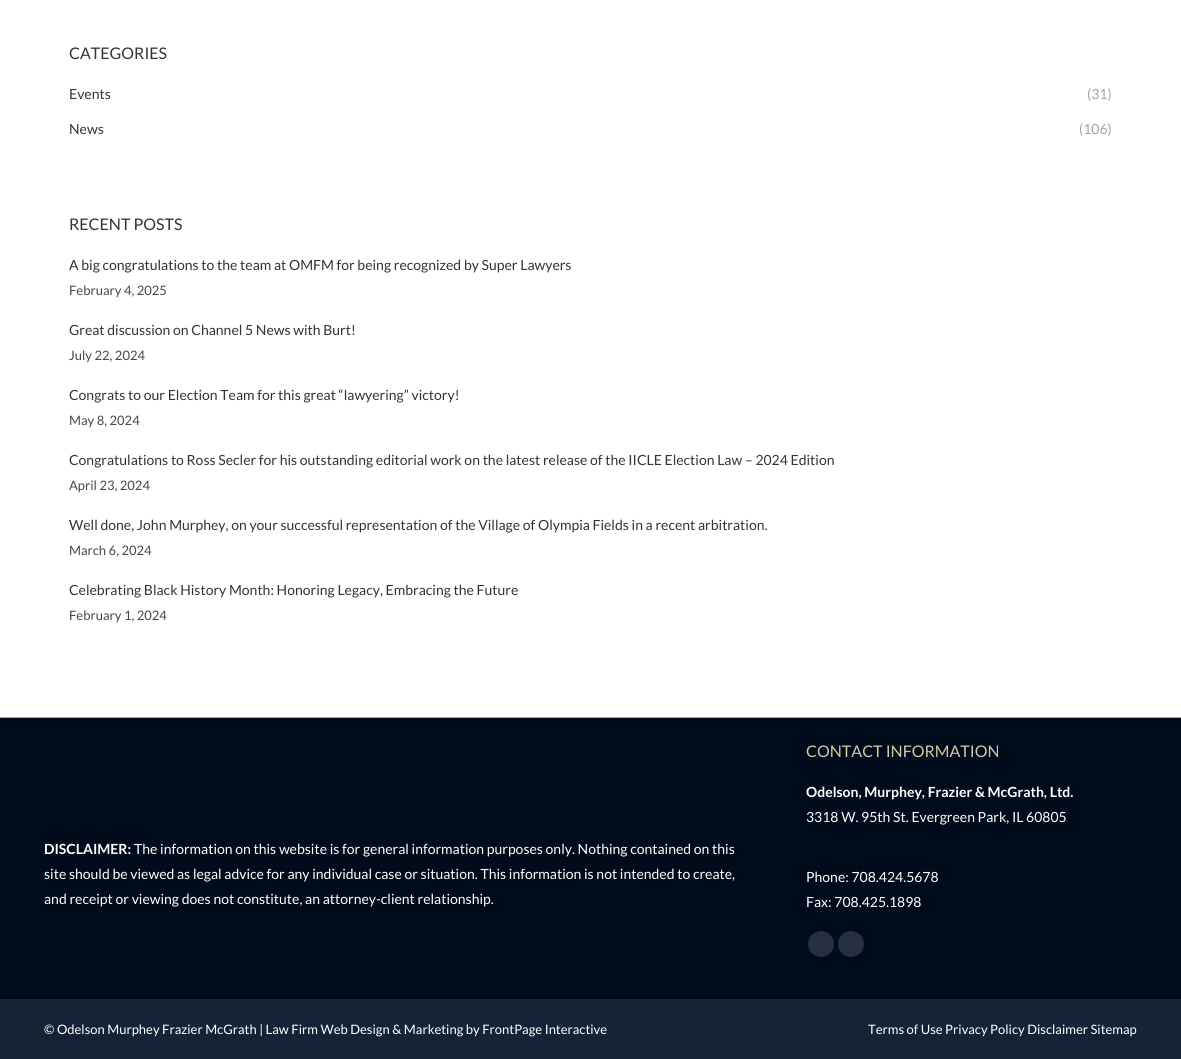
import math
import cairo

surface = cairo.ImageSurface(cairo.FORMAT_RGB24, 1181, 1059)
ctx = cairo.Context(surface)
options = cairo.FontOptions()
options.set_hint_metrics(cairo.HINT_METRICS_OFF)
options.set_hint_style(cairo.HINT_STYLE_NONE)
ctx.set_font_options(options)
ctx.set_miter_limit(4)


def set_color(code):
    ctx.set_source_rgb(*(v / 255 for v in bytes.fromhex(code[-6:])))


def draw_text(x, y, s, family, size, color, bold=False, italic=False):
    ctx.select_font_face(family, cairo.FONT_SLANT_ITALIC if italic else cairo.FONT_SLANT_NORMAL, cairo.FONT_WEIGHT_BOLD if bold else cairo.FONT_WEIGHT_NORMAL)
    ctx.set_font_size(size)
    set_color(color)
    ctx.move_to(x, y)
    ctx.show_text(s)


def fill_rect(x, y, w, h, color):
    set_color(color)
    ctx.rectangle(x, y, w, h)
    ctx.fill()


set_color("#ffffff")
ctx.paint()
draw_text(69, 59, "CATEGORIES", "Lato", 16, "#333333")
draw_text(69, 99, "Events", "Lato", 14, "#333333")
draw_text(1087, 99, "(31)", "Lato", 14, "#a3a3a3")
draw_text(69, 134, "News", "Lato", 14, "#333333")
draw_text(1079, 134, "(106)", "Lato", 14, "#a3a3a3")
draw_text(69, 230, "RECENT POSTS", "Lato", 16, "#333333")
draw_text(69, 270, "A big congratulations to the team at OMFM for being recognized by Super Lawyers", "Lato", 14, "#333333")
draw_text(69, 295, "February 4, 2025", "Lato", 13, "#474747")
draw_text(69, 335, "Great discussion on Channel 5 News with Burt!", "Lato", 14, "#333333")
draw_text(69, 360, "July 22, 2024", "Lato", 13, "#474747")
draw_text(69, 400, "Congrats to our Election Team for this great “lawyering” victory!", "Lato", 14, "#333333")
draw_text(69, 425, "May 8, 2024", "Lato", 13, "#474747")
draw_text(69, 465, "Congratulations to Ross Secler for his outstanding editorial work on the latest release of the IICLE Election Law – 2024 Edition", "Lato", 14, "#333333")
draw_text(69, 490, "April 23, 2024", "Lato", 13, "#474747")
draw_text(69, 530, "Well done, John Murphey, on your successful representation of the Village of Olympia Fields in a recent arbitration.", "Lato", 14, "#333333")
draw_text(69, 555, "March 6, 2024", "Lato", 13, "#474747")
draw_text(69, 595, "Celebrating Black History Month: Honoring Legacy, Embracing the Future", "Lato", 14, "#333333")
draw_text(69, 620, "February 1, 2024", "Lato", 13, "#474747")
fill_rect(0, 718, 1181, 281, "#000c1c")
fill_rect(0, 717, 1181, 1, "#b2ae9b")
draw_text(44, 854, "DISCLAIMER:", "Lato", 14, "#ffffff", bold=True)
draw_text(134, 854, "The information on this website is for general information purposes only. Nothing contained on this", "Lato", 14, "#ffffff")
draw_text(44, 879, "site should be viewed as legal advice for any individual case or situation. This information is not intended to create,", "Lato", 14, "#ffffff")
draw_text(44, 904, "and receipt or viewing does not constitute, an attorney-client relationship.", "Lato", 14, "#ffffff")
draw_text(806, 757, "CONTACT INFORMATION", "Lato", 16, "#d1cca5")
draw_text(806, 797, "Odelson, Murphey, Frazier & McGrath, Ltd.", "Lato", 14, "#ffffff", bold=True)
draw_text(806, 822, "3318 W. 95th St. Evergreen Park, IL 60805", "Lato", 14, "#ffffff")
draw_text(806, 882, "Phone: 708.424.5678", "Lato", 14, "#ffffff")
draw_text(806, 907, "Fax: 708.425.1898", "Lato", 14, "#ffffff")
set_color("#26303e")
ctx.new_path()
ctx.arc(821, 944, 13, 0, 2 * math.pi)
ctx.fill()
ctx.arc(851, 944, 13, 0, 2 * math.pi)
ctx.fill()
fill_rect(0, 999, 1181, 60, "#162336")
draw_text(44, 1034, "© Odelson Murphey Frazier McGrath | Law Firm Web Design & Marketing by FrontPage Interactive", "Lato", 13, "#ffffff")
draw_text(868, 1034, "Terms of Use Privacy Policy Disclaimer Sitemap", "Lato", 13, "#ffffff")
surface.write_to_png("output.png")
